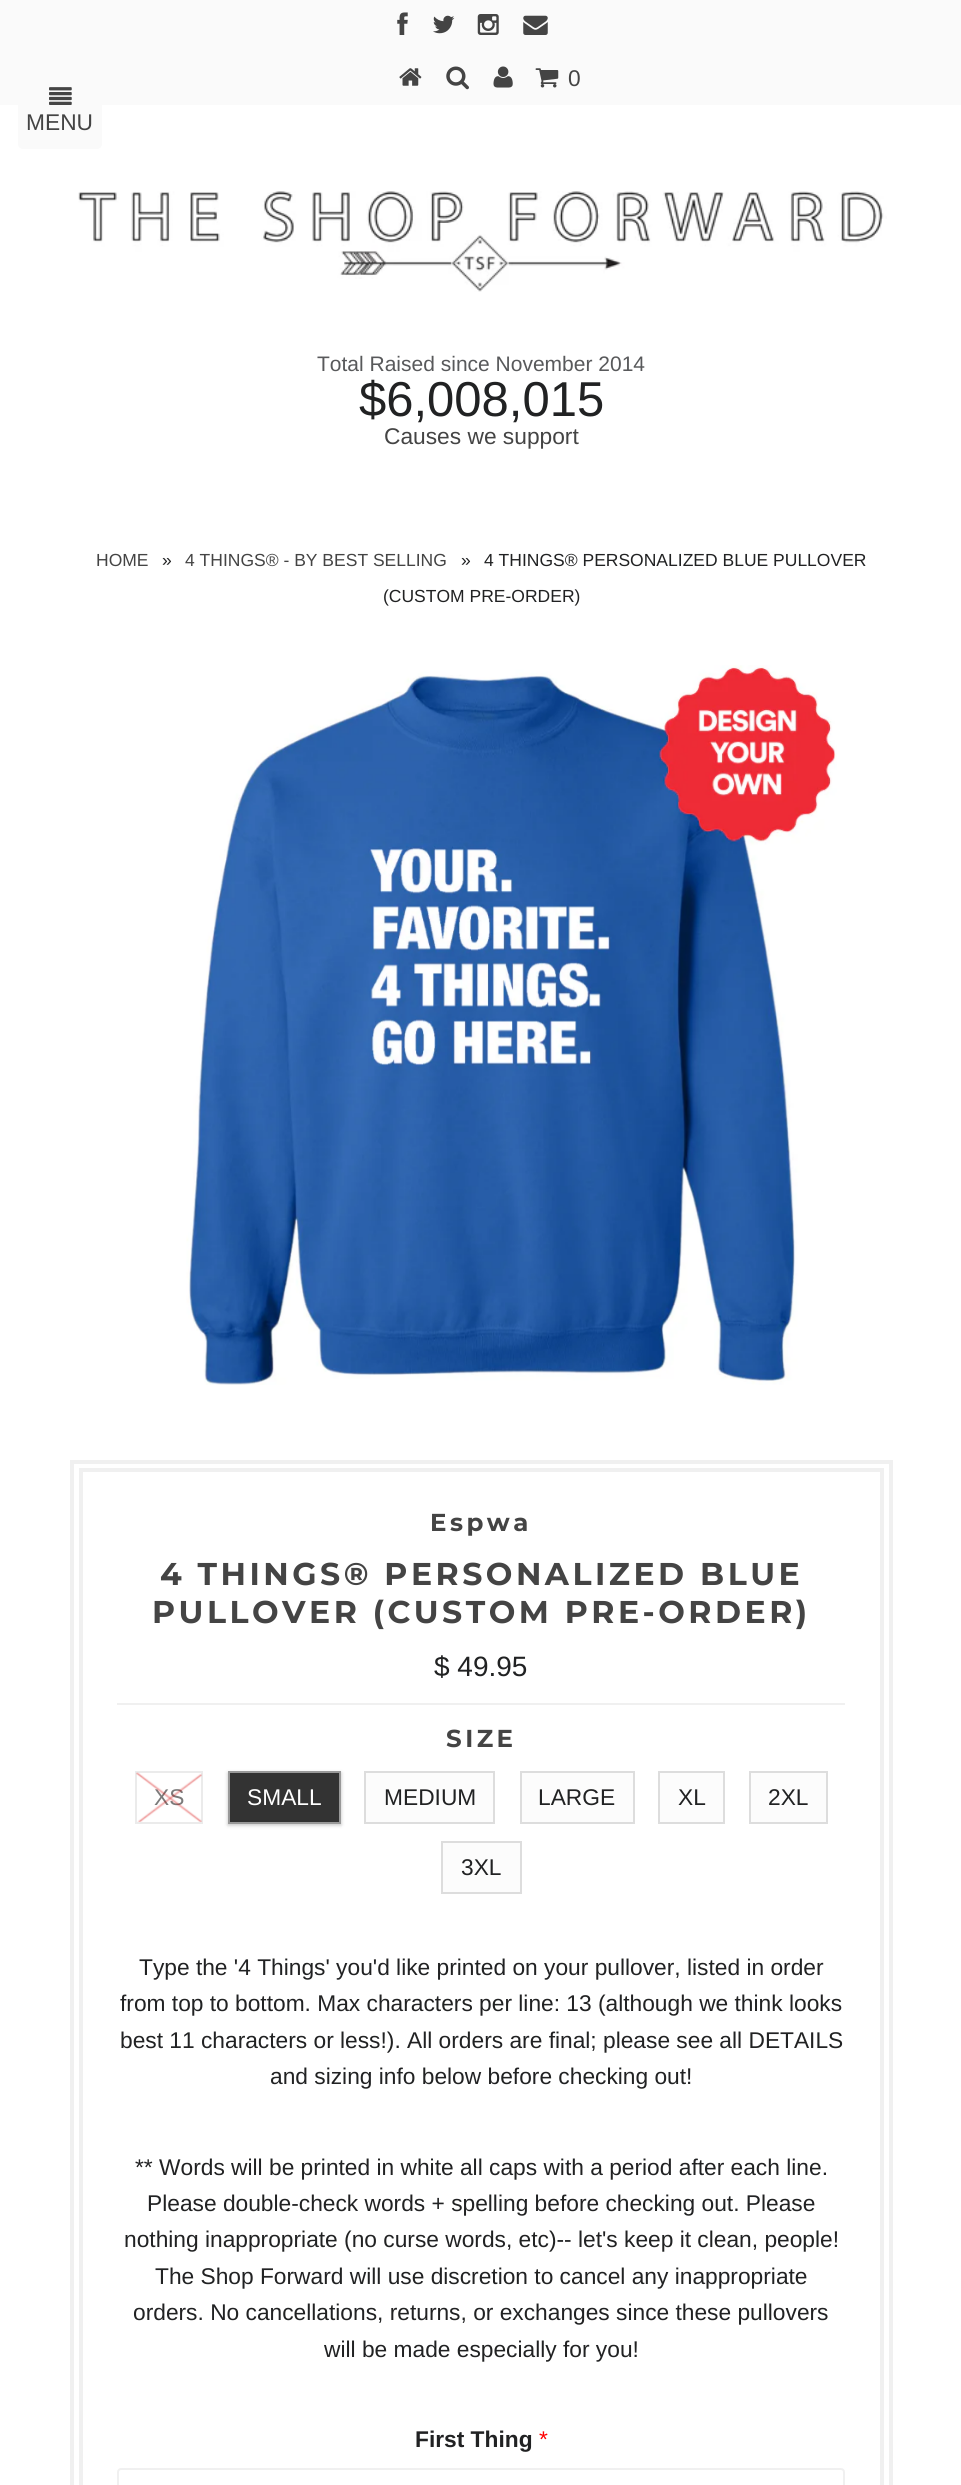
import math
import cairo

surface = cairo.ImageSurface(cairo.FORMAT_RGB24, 961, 2485)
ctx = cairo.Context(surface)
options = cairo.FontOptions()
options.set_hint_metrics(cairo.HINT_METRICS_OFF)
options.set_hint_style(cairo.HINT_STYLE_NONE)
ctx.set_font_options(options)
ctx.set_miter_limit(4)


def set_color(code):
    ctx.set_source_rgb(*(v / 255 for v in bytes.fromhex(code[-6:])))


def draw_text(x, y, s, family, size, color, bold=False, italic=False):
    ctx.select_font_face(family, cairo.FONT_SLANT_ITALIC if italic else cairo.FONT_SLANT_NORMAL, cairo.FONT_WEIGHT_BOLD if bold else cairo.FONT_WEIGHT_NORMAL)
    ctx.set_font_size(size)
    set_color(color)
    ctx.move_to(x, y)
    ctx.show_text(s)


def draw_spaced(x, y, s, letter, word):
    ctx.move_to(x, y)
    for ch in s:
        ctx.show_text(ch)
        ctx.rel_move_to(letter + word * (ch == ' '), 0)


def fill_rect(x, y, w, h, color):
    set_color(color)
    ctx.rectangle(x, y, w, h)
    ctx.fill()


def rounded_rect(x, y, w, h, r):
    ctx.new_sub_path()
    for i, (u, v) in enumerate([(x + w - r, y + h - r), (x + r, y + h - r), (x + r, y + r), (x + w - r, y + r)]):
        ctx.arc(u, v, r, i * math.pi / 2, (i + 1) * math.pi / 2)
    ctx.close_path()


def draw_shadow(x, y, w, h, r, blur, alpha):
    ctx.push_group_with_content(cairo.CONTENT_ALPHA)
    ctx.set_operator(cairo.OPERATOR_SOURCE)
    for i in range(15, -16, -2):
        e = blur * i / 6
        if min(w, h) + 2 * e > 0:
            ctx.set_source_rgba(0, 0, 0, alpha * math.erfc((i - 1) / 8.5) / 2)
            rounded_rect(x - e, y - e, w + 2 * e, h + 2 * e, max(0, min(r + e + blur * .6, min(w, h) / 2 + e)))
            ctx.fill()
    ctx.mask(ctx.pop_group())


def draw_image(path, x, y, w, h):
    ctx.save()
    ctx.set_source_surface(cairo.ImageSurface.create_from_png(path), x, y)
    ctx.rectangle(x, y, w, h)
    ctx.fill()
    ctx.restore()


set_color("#ffffff")
ctx.paint()
fill_rect(0, 0, 961, 105, "#fafafa")
rounded_rect(18, 70, 84, 79, 5)
ctx.fill()
draw_image("assets/img1.png", 49, 87, 23, 18)
draw_text(26, 130, "MENU", "Liberation Sans", 22.75, "#444444")
draw_image("assets/img2.png", 397, 12, 11, 23)
draw_image("assets/img3.png", 433, 15, 22, 19)
draw_image("assets/img4.png", 477, 14, 22, 21)
draw_image("assets/img5.png", 523, 15, 25, 20)
draw_image("assets/img6.png", 399, 68, 23, 18)
draw_image("assets/img7.png", 446, 66, 23, 24)
draw_image("assets/img8.png", 493, 66, 20, 22)
draw_image("assets/img9.png", 535, 68, 24, 20)
draw_text(568, 86, "0", "Liberation Sans", 22.75, "#444444")
draw_image("assets/img10.png", 78, 191, 809, 101)
draw_text(317, 371, "Total Raised since November 2014", "Liberation Sans", 21, "#58595b")
draw_text(359, 416, "$6,008,015", "Liberation Sans", 49, "#212223")
draw_text(384, 444, "Causes we support", "Liberation Sans", 22.75, "#444444")
draw_text(96, 566, "HOME", "Liberation Sans", 17.5, "#444444")
draw_text(162, 566, "»", "Liberation Sans", 17.5, "#212223")
draw_text(185, 566, "4 THINGS® - BY BEST SELLING", "Liberation Sans", 17.5, "#444444")
draw_text(461, 566, "»", "Liberation Sans", 17.5, "#212223")
draw_text(484, 566, "4 THINGS® PERSONALIZED BLUE PULLOVER", "Liberation Sans", 17.5, "#212223")
draw_text(383, 602, "(CUSTOM PRE-ORDER)", "Liberation Sans", 17.5, "#212223")
draw_image("assets/img11.png", 186, 665, 651, 720)
ctx.rectangle(72, 1462, 819, 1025)
set_color("#f0f0f0")
ctx.set_line_width(4)
ctx.stroke()
ctx.rectangle(81, 1470, 801, 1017)
ctx.stroke()
ctx.select_font_face("Montserrat", cairo.FONT_SLANT_NORMAL, cairo.FONT_WEIGHT_BOLD)
ctx.set_font_size(24.5)
set_color("#444444")
draw_spaced(430, 1531, "Espwa", 3.5, 0)
ctx.set_font_size(31.5)
draw_spaced(160, 1585, "4 THINGS® PERSONALIZED BLUE", 3.5, 0)
draw_spaced(152, 1623, "PULLOVER (CUSTOM PRE-ORDER)", 3.5, 0)
draw_text(434, 1676, "$ 49.95", "Liberation Sans", 28, "#212223")
fill_rect(117, 1703, 728, 2, "#f0f0f0")
ctx.select_font_face("Montserrat", cairo.FONT_SLANT_NORMAL, cairo.FONT_WEIGHT_BOLD)
ctx.set_font_size(24.5)
set_color("#444444")
draw_spaced(446, 1747, "SIZE", 3.5, 0)
ctx.rectangle(136, 1772, 66, 51)
set_color("#ebebeb")
ctx.set_line_width(2)
ctx.stroke()
draw_text(154, 1805, "XS", "Liberation Sans", 22.75, "#7b7b7b")
draw_image("assets/img12.png", 136, 1772, 66, 50)
set_color("#000000")
draw_shadow(228, 1773, 113, 52, 0, 2, 0.25)
set_color("#333333")
ctx.rectangle(229, 1772, 111, 51)
ctx.fill_preserve()
set_color("#999999")
ctx.stroke()
draw_text(247, 1805, "SMALL", "Liberation Sans", 22.75, "#ffffff")
set_color("#fcfcfc")
ctx.rectangle(365, 1772, 129, 51)
ctx.fill_preserve()
set_color("#dddddd")
ctx.stroke()
draw_text(384, 1805, "MEDIUM", "Liberation Sans", 22.75, "#212223")
set_color("#fcfcfc")
ctx.rectangle(521, 1772, 113, 51)
ctx.fill_preserve()
set_color("#dddddd")
ctx.stroke()
draw_text(538, 1805, "LARGE", "Liberation Sans", 22.75, "#212223")
set_color("#fcfcfc")
ctx.rectangle(659, 1772, 65, 51)
ctx.fill_preserve()
set_color("#dddddd")
ctx.stroke()
draw_text(678, 1805, "XL", "Liberation Sans", 22.75, "#212223")
set_color("#fcfcfc")
ctx.rectangle(750, 1772, 77, 51)
ctx.fill_preserve()
set_color("#dddddd")
ctx.stroke()
draw_text(768, 1805, "2XL", "Liberation Sans", 22.75, "#212223")
set_color("#fcfcfc")
ctx.rectangle(442, 1842, 79, 51)
ctx.fill_preserve()
set_color("#dddddd")
ctx.stroke()
draw_text(461, 1875, "3XL", "Liberation Sans", 22.75, "#212223")
draw_text(139, 1975, "Type the '4 Things' you'd like printed on your pullover, listed in order", "Liberation Sans", 22.75, "#212223")
draw_text(120, 2011, "from top to bottom. Max characters per line: 13 (although we think looks", "Liberation Sans", 22.75, "#212223")
draw_text(120, 2048, "best 11 characters or less!). All orders are final; please see all DETAILS", "Liberation Sans", 22.75, "#212223")
draw_text(270, 2084, "and sizing info below before checking out!", "Liberation Sans", 22.75, "#212223")
draw_text(135, 2175, "** Words will be printed in white all caps with a period after each line.", "Liberation Sans", 22.75, "#212223")
draw_text(147, 2211, "Please double-check words + spelling before checking out. Please", "Liberation Sans", 22.75, "#212223")
draw_text(124, 2247, "nothing inappropriate (no curse words, etc)-- let's keep it clean, people!", "Liberation Sans", 22.75, "#212223")
draw_text(155, 2284, "The Shop Forward will use discretion to cancel any inappropriate", "Liberation Sans", 22.75, "#212223")
draw_text(133, 2320, "orders. No cancellations, returns, or exchanges since these pullovers", "Liberation Sans", 22.75, "#212223")
draw_text(324, 2357, "will be made especially for you!", "Liberation Sans", 22.75, "#212223")
draw_text(415, 2447, "First Thing", "Liberation Sans", 22.75, "#212223", bold=True)
draw_text(539, 2447, "*", "Liberation Sans", 22.75, "#ff0000")
rounded_rect(118, 2469, 726, 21, 3)
set_color("#f0f0f0")
ctx.stroke()
surface.write_to_png("output.png")
